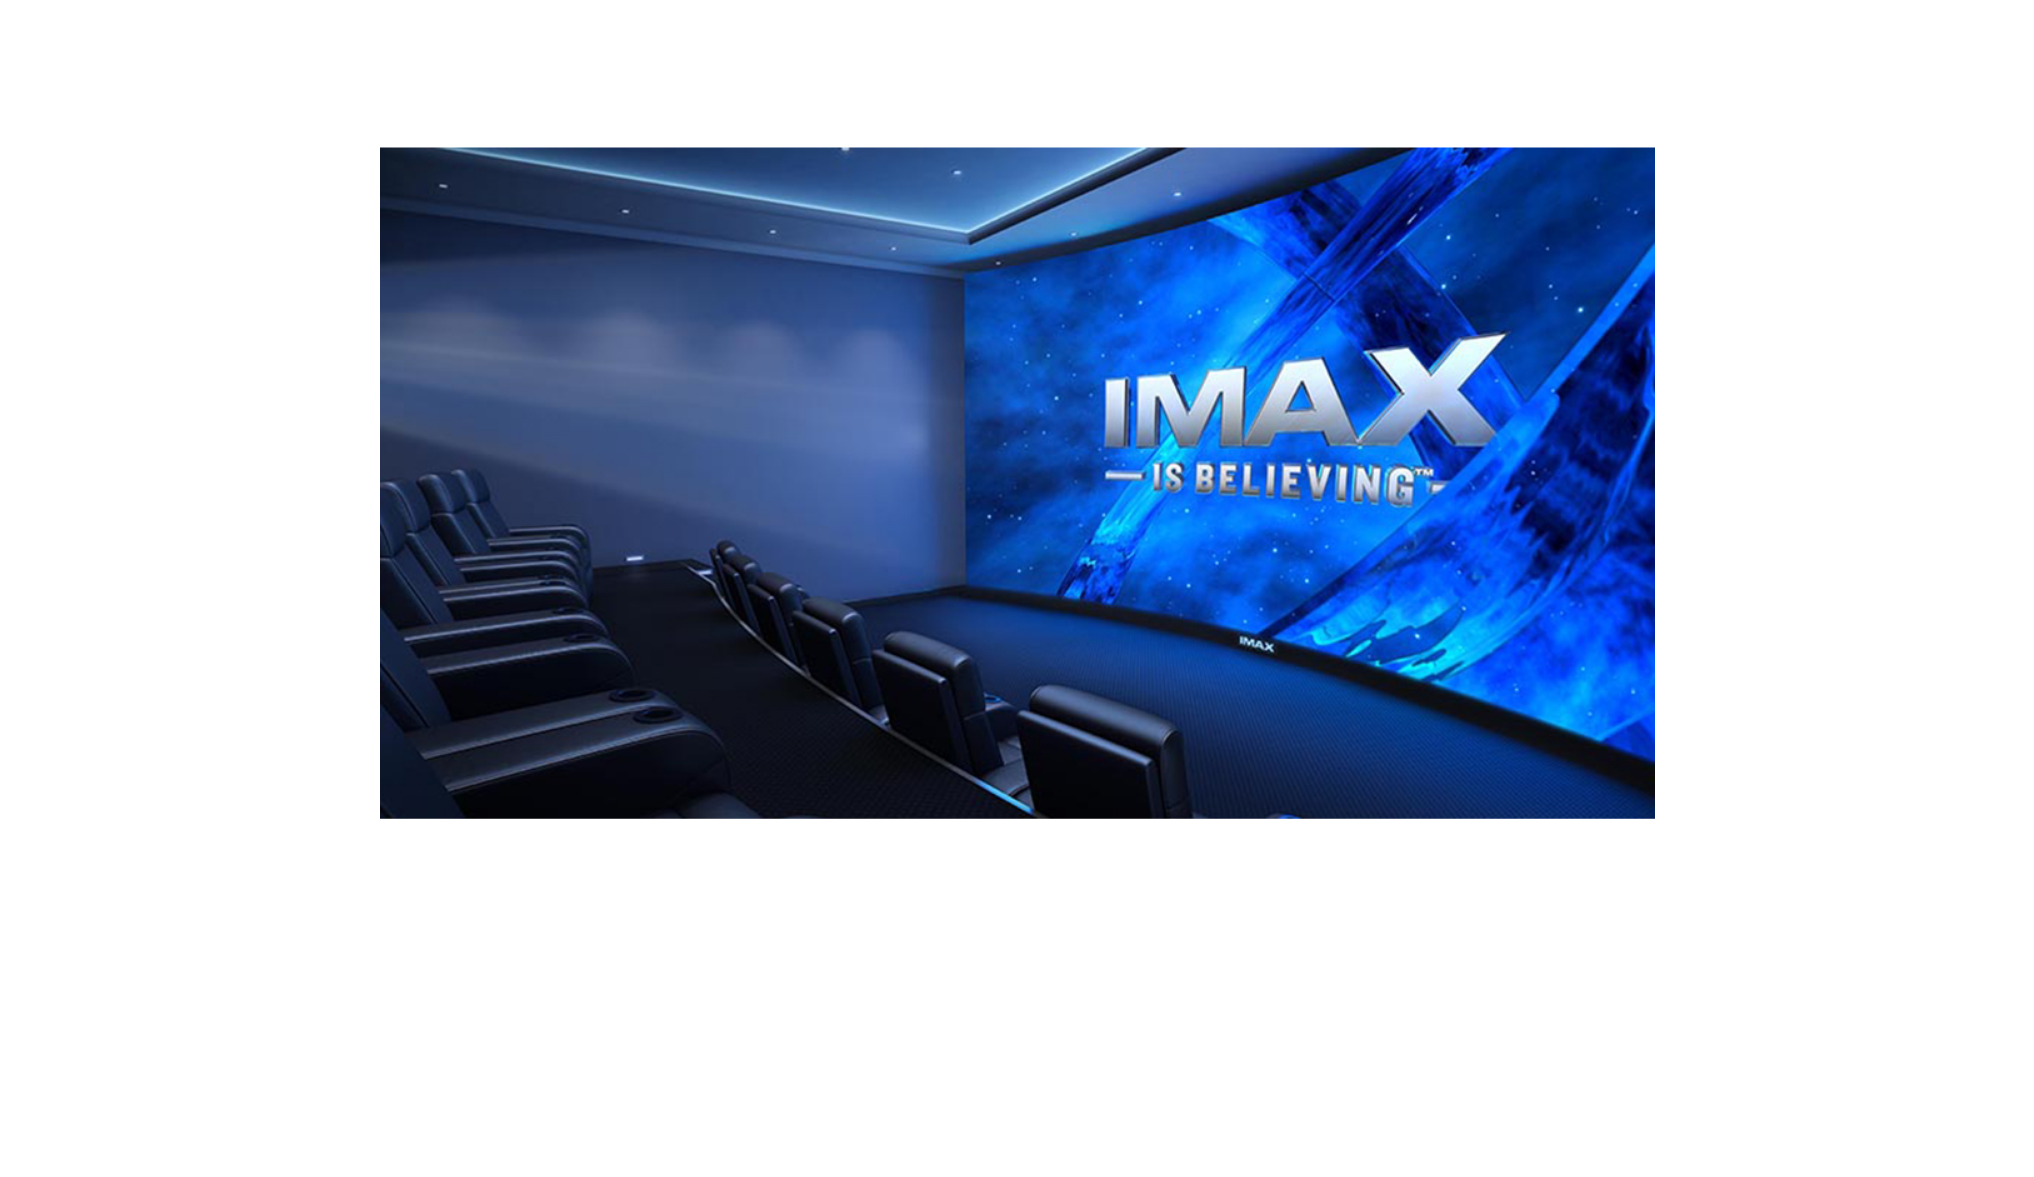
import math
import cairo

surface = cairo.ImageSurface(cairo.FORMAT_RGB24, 2034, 1177)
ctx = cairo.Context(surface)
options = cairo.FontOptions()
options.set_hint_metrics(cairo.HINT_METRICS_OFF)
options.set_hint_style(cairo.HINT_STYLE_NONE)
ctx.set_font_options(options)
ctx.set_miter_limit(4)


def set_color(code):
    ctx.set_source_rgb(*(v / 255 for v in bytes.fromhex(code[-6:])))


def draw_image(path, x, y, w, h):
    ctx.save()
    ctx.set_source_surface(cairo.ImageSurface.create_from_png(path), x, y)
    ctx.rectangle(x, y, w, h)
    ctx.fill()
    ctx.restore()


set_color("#ffffff")
ctx.paint()
draw_image("assets/img1.png", 380, 147, 1275, 672)
surface.write_to_png("output.png")
